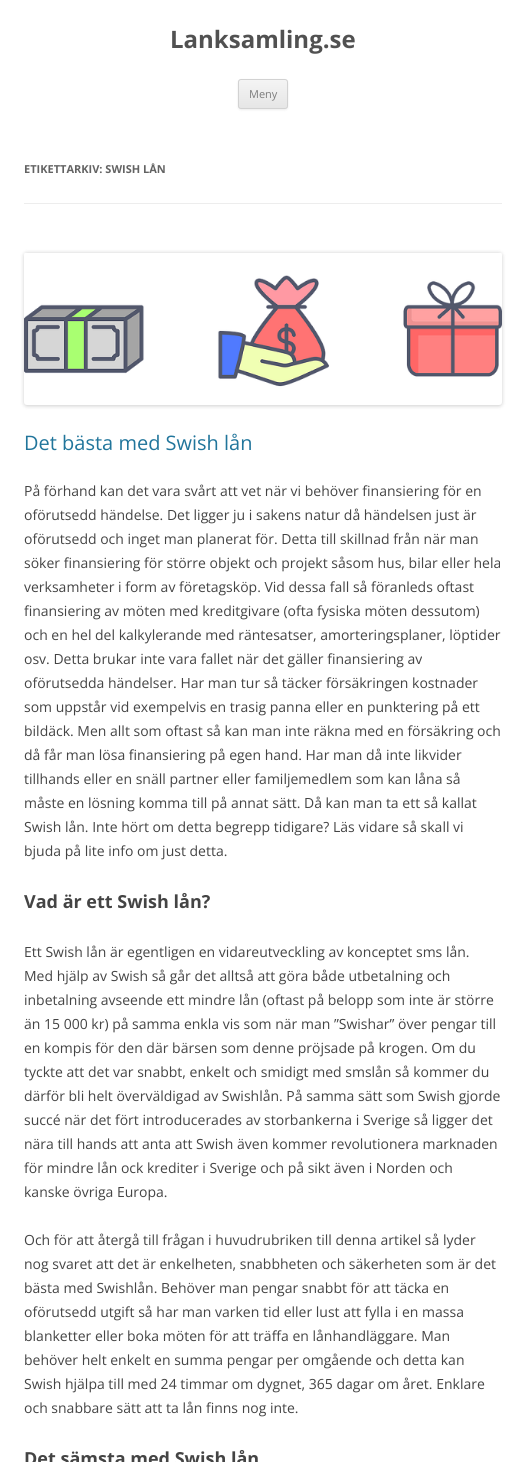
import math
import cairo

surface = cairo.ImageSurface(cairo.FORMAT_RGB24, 526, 1462)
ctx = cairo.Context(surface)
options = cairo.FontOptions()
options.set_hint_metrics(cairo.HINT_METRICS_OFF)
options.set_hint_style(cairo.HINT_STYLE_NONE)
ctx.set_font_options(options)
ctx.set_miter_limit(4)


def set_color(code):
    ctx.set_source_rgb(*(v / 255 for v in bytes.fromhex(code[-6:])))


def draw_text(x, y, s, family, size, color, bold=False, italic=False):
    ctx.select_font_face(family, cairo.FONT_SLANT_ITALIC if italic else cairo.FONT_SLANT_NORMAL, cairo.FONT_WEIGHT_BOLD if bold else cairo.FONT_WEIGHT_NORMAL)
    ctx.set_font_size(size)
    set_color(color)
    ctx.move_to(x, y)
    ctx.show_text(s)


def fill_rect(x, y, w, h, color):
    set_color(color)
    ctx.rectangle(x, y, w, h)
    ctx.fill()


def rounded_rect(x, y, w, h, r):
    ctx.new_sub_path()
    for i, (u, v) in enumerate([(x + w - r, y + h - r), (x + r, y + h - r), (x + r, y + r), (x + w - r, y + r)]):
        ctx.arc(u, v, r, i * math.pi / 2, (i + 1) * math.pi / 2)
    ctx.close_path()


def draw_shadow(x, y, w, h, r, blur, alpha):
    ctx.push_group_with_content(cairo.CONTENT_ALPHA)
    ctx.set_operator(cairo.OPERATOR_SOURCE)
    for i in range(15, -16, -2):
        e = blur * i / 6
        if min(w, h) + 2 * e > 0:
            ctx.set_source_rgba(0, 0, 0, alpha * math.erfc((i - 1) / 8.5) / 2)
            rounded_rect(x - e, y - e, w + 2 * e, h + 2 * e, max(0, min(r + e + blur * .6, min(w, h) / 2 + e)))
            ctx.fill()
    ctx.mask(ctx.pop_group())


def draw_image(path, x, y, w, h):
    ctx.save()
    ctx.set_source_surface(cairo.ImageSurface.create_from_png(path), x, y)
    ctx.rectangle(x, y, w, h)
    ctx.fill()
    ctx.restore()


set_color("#ffffff")
ctx.paint()
draw_text(170, 48, "Lanksamling.se", "Open Sans", 24, "#515151", bold=True)
set_color("#404040")
draw_shadow(238, 80, 50, 30, 3, 1, 0.1)
ctx.save()
rounded_rect(238, 79, 50, 30, 3)
ctx.clip()
gradient = cairo.LinearGradient(263, 80, 263, 108)
gradient.add_color_stop_rgba(0, 0.957, 0.957, 0.957, 1)
gradient.add_color_stop_rgba(1, 0.902, 0.902, 0.902, 1)
ctx.set_source(gradient)
ctx.rectangle(238, 80, 50, 28)
ctx.fill()
ctx.restore()
rounded_rect(238.5, 79.5, 49, 29, 2.5)
set_color("#d2d2d2")
ctx.set_line_width(1)
ctx.stroke()
draw_text(249, 98, "Meny", "Open Sans", 11, "#7c7c7c")
fill_rect(24, 203, 478, 1, "#ededed")
draw_text(24, 173, "ETIKETTARKIV: SWISH LÅN", "Open Sans", 11, "#636363", bold=True)
set_color("#000000")
draw_shadow(24, 253, 478, 153, 3, 2, 0.2)
draw_image("assets/img1.png", 24, 253, 478, 152)
draw_text(24, 450, "Det bästa med Swish lån", "Open Sans", 20, "#21759b")
draw_text(24, 496, "På förhand kan det vara svårt att vet när vi behöver finansiering för en", "Open Sans", 14, "#444444")
draw_text(24, 520, "oförutsedd händelse. Det ligger ju i sakens natur då händelsen just är", "Open Sans", 14, "#444444")
draw_text(24, 544, "oförutsedd och inget man planerat för. Detta till skillnad från när man", "Open Sans", 14, "#444444")
draw_text(24, 568, "söker finansiering för större objekt och projekt såsom hus, bilar eller hela", "Open Sans", 14, "#444444")
draw_text(24, 592, "verksamheter i form av företagsköp. Vid dessa fall så föranleds oftast", "Open Sans", 14, "#444444")
draw_text(24, 616, "finansiering av möten med kreditgivare (ofta fysiska möten dessutom)", "Open Sans", 14, "#444444")
draw_text(24, 640, "och en hel del kalkylerande med räntesatser, amorteringsplaner, löptider", "Open Sans", 14, "#444444")
draw_text(24, 664, "osv. Detta brukar inte vara fallet när det gäller finansiering av", "Open Sans", 14, "#444444")
draw_text(24, 688, "oförutsedda händelser. Har man tur så täcker försäkringen kostnader", "Open Sans", 14, "#444444")
draw_text(24, 712, "som uppstår vid exempelvis en trasig panna eller en punktering på ett", "Open Sans", 14, "#444444")
draw_text(24, 736, "bildäck. Men allt som oftast så kan man inte räkna med en försäkring och", "Open Sans", 14, "#444444")
draw_text(24, 760, "då får man lösa finansiering på egen hand. Har man då inte likvider", "Open Sans", 14, "#444444")
draw_text(24, 784, "tillhands eller en snäll partner eller familjemedlem som kan låna så", "Open Sans", 14, "#444444")
draw_text(24, 808, "måste en lösning komma till på annat sätt. Då kan man ta ett så kallat", "Open Sans", 14, "#444444")
draw_text(24, 832, "Swish lån. Inte hört om detta begrepp tidigare? Läs vidare så skall vi", "Open Sans", 14, "#444444")
draw_text(24, 856, "bjuda på lite info om just detta.", "Open Sans", 14, "#444444")
draw_text(24, 908, "Vad är ett Swish lån?", "Open Sans", 18, "#444444", bold=True)
draw_text(24, 957, "Ett Swish lån är egentligen en vidareutveckling av konceptet sms lån.", "Open Sans", 14, "#444444")
draw_text(24, 981, "Med hjälp av Swish så går det alltså att göra både utbetalning och", "Open Sans", 14, "#444444")
draw_text(24, 1005, "inbetalning avseende ett mindre lån (oftast på belopp som inte är större", "Open Sans", 14, "#444444")
draw_text(24, 1029, "än 15 000 kr) på samma enkla vis som när man ”Swishar” över pengar till", "Open Sans", 14, "#444444")
draw_text(24, 1053, "en kompis för den där bärsen som denne pröjsade på krogen. Om du", "Open Sans", 14, "#444444")
draw_text(24, 1077, "tyckte att det var snabbt, enkelt och smidigt med smslån så kommer du", "Open Sans", 14, "#444444")
draw_text(24, 1101, "därför bli helt överväldigad av Swishlån. På samma sätt som Swish gjorde", "Open Sans", 14, "#444444")
draw_text(24, 1125, "succé när det fört introducerades av storbankerna i Sverige så ligger det", "Open Sans", 14, "#444444")
draw_text(24, 1149, "nära till hands att anta att Swish även kommer revolutionera marknaden", "Open Sans", 14, "#444444")
draw_text(24, 1173, "för mindre lån ock krediter i Sverige och på sikt även i Norden och", "Open Sans", 14, "#444444")
draw_text(24, 1197, "kanske övriga Europa.", "Open Sans", 14, "#444444")
draw_text(24, 1245, "Och för att återgå till frågan i huvudrubriken till denna artikel så lyder", "Open Sans", 14, "#444444")
draw_text(24, 1269, "nog svaret att det är enkelheten, snabbheten och säkerheten som är det", "Open Sans", 14, "#444444")
draw_text(24, 1293, "bästa med Swishlån. Behöver man pengar snabbt för att täcka en", "Open Sans", 14, "#444444")
draw_text(24, 1317, "oförutsedd utgift så har man varken tid eller lust att fylla i en massa", "Open Sans", 14, "#444444")
draw_text(24, 1341, "blanketter eller boka möten för att träffa en lånhandläggare. Man", "Open Sans", 14, "#444444")
draw_text(24, 1365, "behöver helt enkelt en summa pengar per omgående och detta kan", "Open Sans", 14, "#444444")
draw_text(24, 1389, "Swish hjälpa till med 24 timmar om dygnet, 365 dagar om året. Enklare", "Open Sans", 14, "#444444")
draw_text(24, 1413, "och snabbare sätt att ta lån finns nog inte.", "Open Sans", 14, "#444444")
draw_text(24, 1465, "Det sämsta med Swish lån", "Open Sans", 18, "#444444", bold=True)
surface.write_to_png("output.png")
